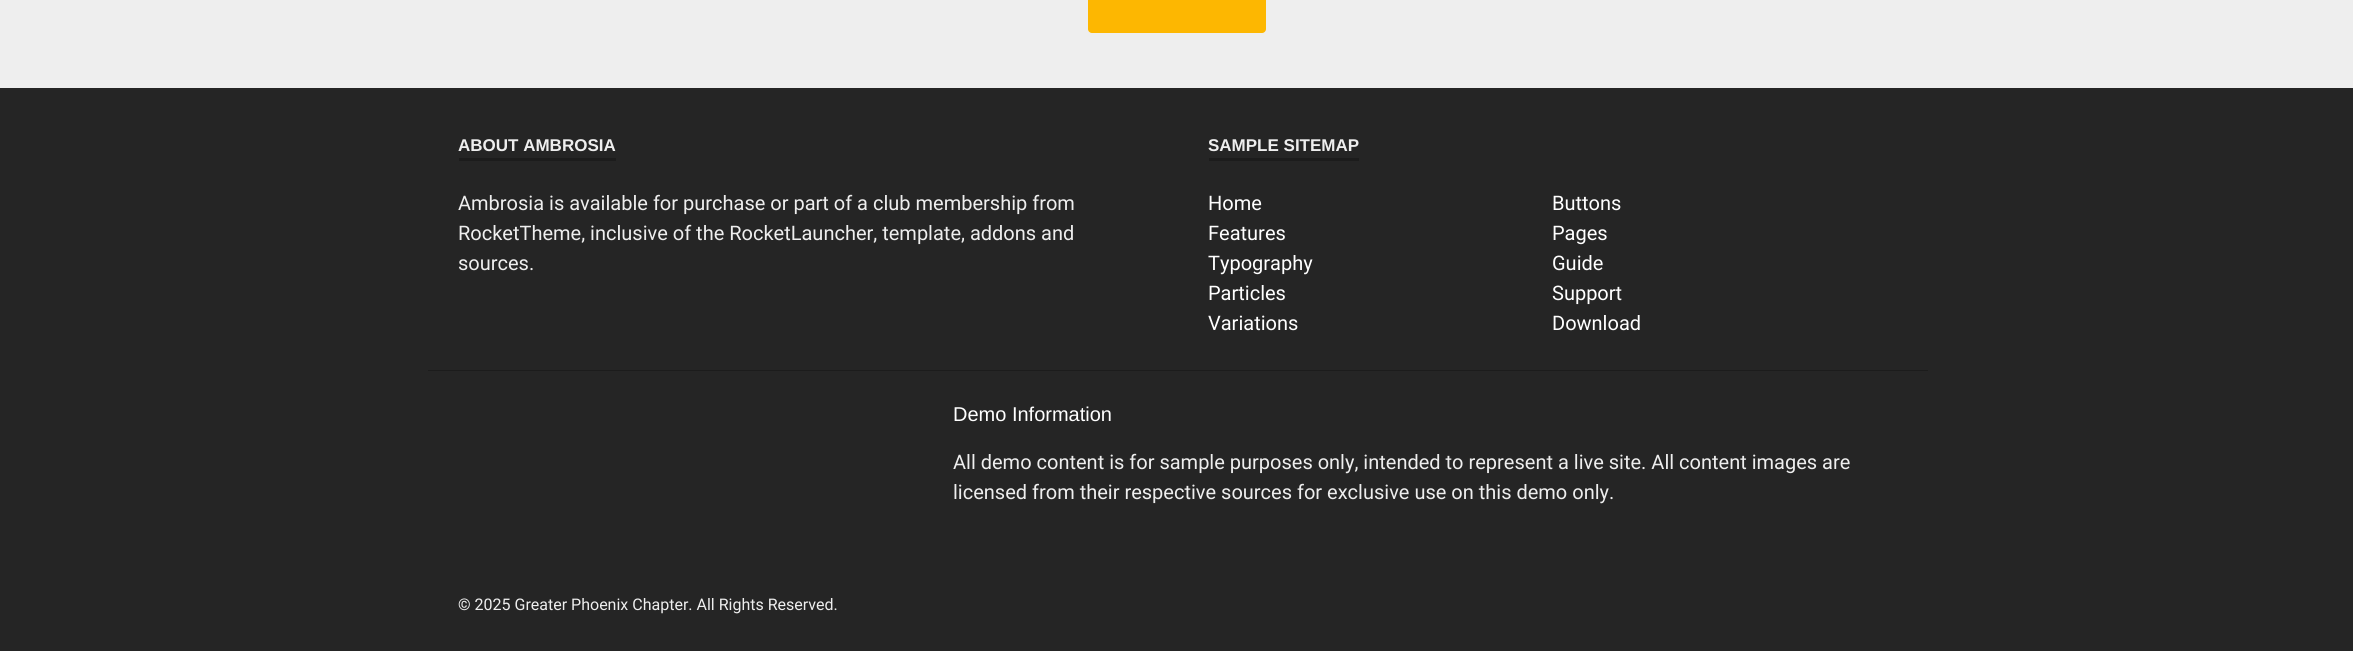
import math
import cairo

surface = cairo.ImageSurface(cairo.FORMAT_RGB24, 2353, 651)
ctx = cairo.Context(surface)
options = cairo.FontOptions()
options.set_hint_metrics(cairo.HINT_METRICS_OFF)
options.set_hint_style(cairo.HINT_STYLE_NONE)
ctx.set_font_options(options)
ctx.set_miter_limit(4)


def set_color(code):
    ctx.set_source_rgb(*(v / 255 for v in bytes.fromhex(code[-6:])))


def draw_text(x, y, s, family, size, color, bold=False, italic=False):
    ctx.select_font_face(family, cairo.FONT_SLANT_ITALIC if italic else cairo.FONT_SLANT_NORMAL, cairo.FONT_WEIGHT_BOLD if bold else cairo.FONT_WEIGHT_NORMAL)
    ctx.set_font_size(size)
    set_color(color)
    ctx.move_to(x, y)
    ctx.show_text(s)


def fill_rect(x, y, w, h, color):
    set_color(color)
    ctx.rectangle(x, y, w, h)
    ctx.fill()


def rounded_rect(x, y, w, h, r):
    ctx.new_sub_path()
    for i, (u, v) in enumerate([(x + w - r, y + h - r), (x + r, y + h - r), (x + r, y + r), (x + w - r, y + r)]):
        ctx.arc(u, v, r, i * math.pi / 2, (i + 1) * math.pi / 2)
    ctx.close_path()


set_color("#eeeeee")
ctx.paint()
set_color("#fdb701")
rounded_rect(1088, -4, 178, 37, 4)
ctx.fill()
fill_rect(0, 88, 2353, 563, "#252525")
draw_text(458, 151, "ABOUT AMBROSIA", "Liberation Sans", 17, "#eeeeee", bold=True)
fill_rect(459, 158, 157, 3, "#1c1c1c")
draw_text(458, 210, "Ambrosia is available for purchase or part of a club membership from", "Roboto", 20, "#eeeeee")
draw_text(458, 240, "RocketTheme, inclusive of the RocketLauncher, template, addons and", "Roboto", 20, "#eeeeee")
draw_text(458, 270, "sources.", "Roboto", 20, "#eeeeee")
draw_text(1208, 151, "SAMPLE SITEMAP", "Liberation Sans", 17, "#eeeeee", bold=True)
fill_rect(1209, 158, 150, 3, "#1c1c1c")
draw_text(1208, 210, "Home", "Roboto", 20, "#ffffff")
draw_text(1208, 240, "Features", "Roboto", 20, "#ffffff")
draw_text(1208, 270, "Typography", "Roboto", 20, "#ffffff")
draw_text(1208, 300, "Particles", "Roboto", 20, "#ffffff")
draw_text(1208, 330, "Variations", "Roboto", 20, "#ffffff")
draw_text(1552, 210, "Buttons", "Roboto", 20, "#ffffff")
draw_text(1552, 240, "Pages", "Roboto", 20, "#ffffff")
draw_text(1552, 270, "Guide", "Roboto", 20, "#ffffff")
draw_text(1552, 300, "Support", "Roboto", 20, "#ffffff")
draw_text(1552, 330, "Download", "Roboto", 20, "#ffffff")
fill_rect(428, 370, 1500, 1, "#1c1c1c")
draw_text(953, 421, "Demo Information", "Liberation Sans", 20, "#ffffff")
draw_text(953, 469, "All demo content is for sample purposes only, intended to represent a live site. All content images are", "Roboto", 20, "#eeeeee")
draw_text(953, 499, "licensed from their respective sources for exclusive use on this demo only.", "Roboto", 20, "#eeeeee")
draw_text(458, 610, "© 2025 Greater Phoenix Chapter. All Rights Reserved.", "Roboto", 16, "#eeeeee")
surface.write_to_png("output.png")
